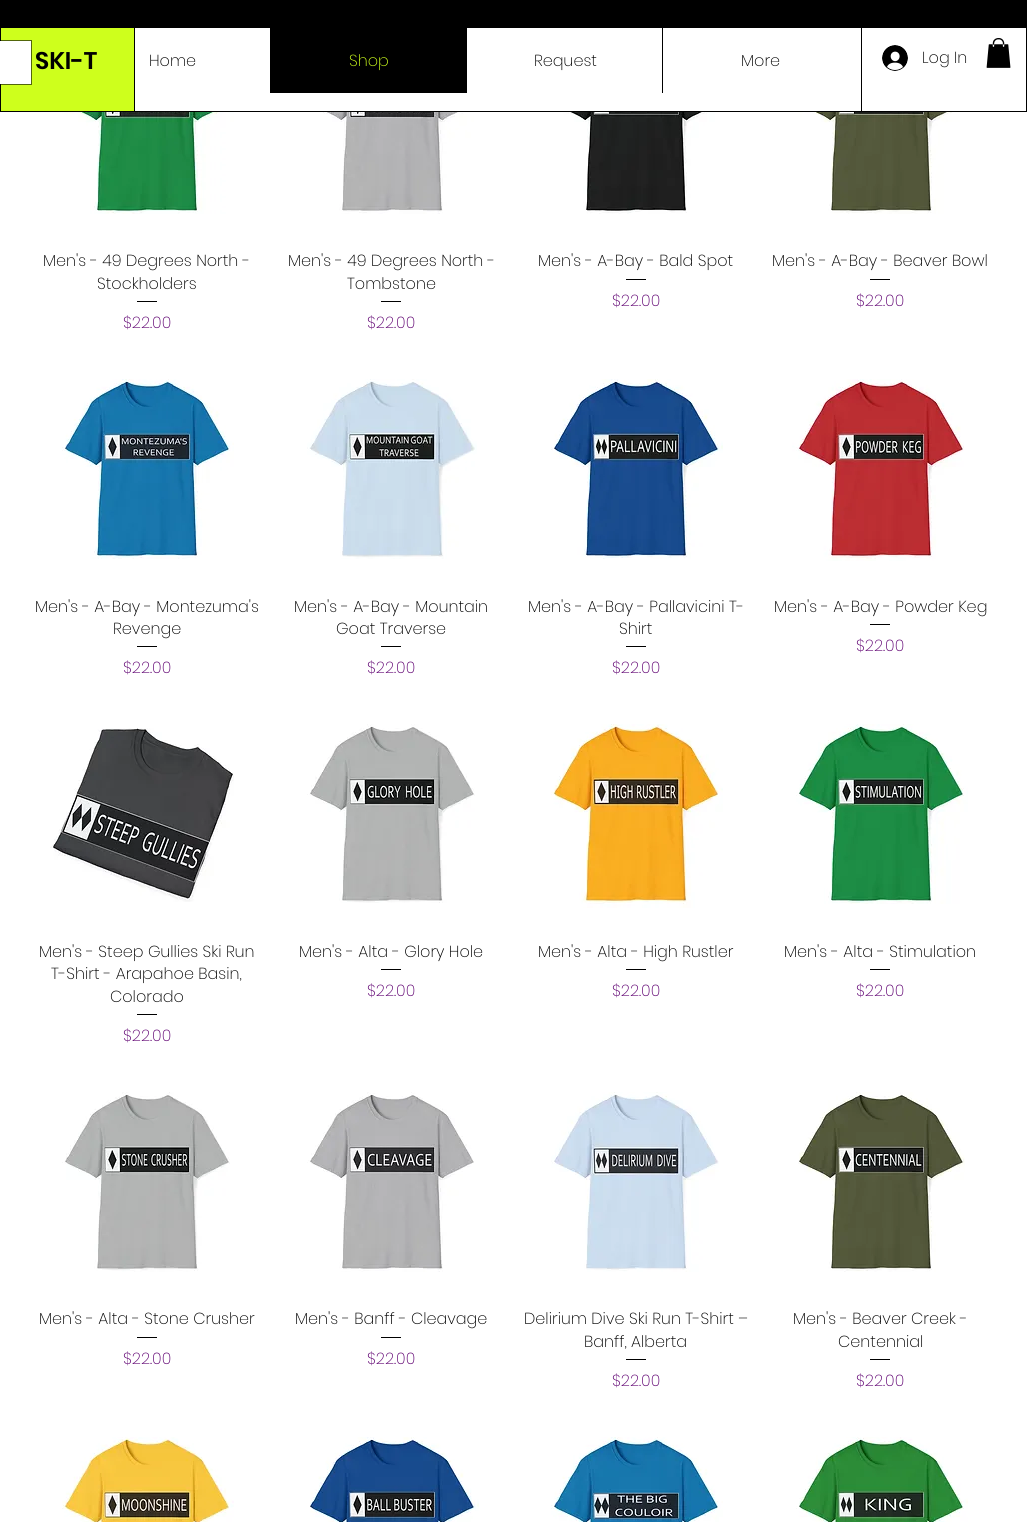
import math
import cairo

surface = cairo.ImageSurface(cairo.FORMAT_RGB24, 1027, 1522)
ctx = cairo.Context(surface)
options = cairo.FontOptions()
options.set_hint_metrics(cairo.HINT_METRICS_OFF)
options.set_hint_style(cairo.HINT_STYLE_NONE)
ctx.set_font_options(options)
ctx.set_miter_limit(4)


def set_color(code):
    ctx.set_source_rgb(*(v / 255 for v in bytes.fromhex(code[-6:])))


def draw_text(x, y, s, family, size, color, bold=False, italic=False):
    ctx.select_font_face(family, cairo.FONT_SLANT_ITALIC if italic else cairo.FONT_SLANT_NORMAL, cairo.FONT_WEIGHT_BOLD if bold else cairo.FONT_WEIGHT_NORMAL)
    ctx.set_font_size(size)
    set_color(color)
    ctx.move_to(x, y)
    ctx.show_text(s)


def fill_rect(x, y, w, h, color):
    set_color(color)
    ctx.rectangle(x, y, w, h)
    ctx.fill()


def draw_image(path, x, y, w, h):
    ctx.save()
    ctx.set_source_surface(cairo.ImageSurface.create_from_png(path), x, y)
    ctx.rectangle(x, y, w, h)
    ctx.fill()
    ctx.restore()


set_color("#ffffff")
ctx.paint()
fill_rect(0, 0, 1027, 112, "#000000")
fill_rect(1, 28, 133, 83, "#ceff1c")
draw_text(35, 69, "SKI-T", "Poppins SemiBold", 24, "#000000")
fill_rect(135, 28, 726, 83, "#ffffff")
ctx.rectangle(-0.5, 40.5, 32, 44)
ctx.set_source_rgba(0, 0, 0, 0.6)
ctx.set_line_width(1)
ctx.stroke()
fill_rect(0, 41, 31, 43, "#ffffff")
draw_text(149, 66, "Home", "Poppins ExtraLight", 16, "#000000")
fill_rect(270, 28, 197, 65, "#000000")
draw_text(349, 66, "Shop", "Poppins ExtraLight", 16, "#ceff1c")
draw_text(534, 66, "Request", "Poppins ExtraLight", 16, "#000000")
fill_rect(662, 28, 1, 65, "#000000")
draw_text(741, 66, "More", "Poppins ExtraLight", 16, "#000000")
fill_rect(862, 28, 164, 83, "#ffffff")
draw_image("assets/img1.png", 882, 45, 26, 26)
draw_text(922, 63, "Log In", "Poppins ExtraLight", 16, "#000000")
draw_image("assets/img2.png", 986, 38, 25, 30)
draw_image("assets/img3.png", 62, 112, 172, 102)
draw_text(43, 266, "Men's - 49 Degrees North -", "Poppins ExtraLight", 16, "#000000")
draw_text(97, 289, "Stockholders", "Poppins ExtraLight", 16, "#000000")
fill_rect(137, 301, 20, 1, "#000000")
draw_text(123, 328, "$22.00", "Poppins ExtraLight", 16, "#620674")
draw_image("assets/img4.png", 307, 112, 167, 102)
draw_text(288, 266, "Men's - 49 Degrees North -", "Poppins ExtraLight", 16, "#000000")
draw_text(347, 289, "Tombstone", "Poppins ExtraLight", 16, "#000000")
fill_rect(381, 301, 20, 1, "#000000")
draw_text(367, 328, "$22.00", "Poppins ExtraLight", 16, "#620674")
draw_image("assets/img5.png", 554, 112, 165, 102)
draw_text(538, 266, "Men's - A-Bay - Bald Spot", "Poppins ExtraLight", 16, "#000000")
fill_rect(626, 279, 20, 1, "#000000")
draw_text(612, 306, "$22.00", "Poppins ExtraLight", 16, "#620674")
draw_image("assets/img6.png", 796, 112, 168, 102)
draw_text(772, 266, "Men's - A-Bay - Beaver Bowl", "Poppins ExtraLight", 16, "#000000")
fill_rect(870, 279, 20, 1, "#000000")
draw_text(856, 306, "$22.00", "Poppins ExtraLight", 16, "#620674")
draw_image("assets/img7.png", 62, 379, 172, 180)
draw_text(35, 612, "Men's - A-Bay - Montezuma's", "Poppins ExtraLight", 16, "#000000")
draw_text(113, 634, "Revenge", "Poppins ExtraLight", 16, "#000000")
fill_rect(137, 646, 20, 1, "#000000")
draw_text(123, 673, "$22.00", "Poppins ExtraLight", 16, "#620674")
draw_image("assets/img8.png", 307, 379, 170, 180)
draw_text(294, 612, "Men's - A-Bay - Mountain", "Poppins ExtraLight", 16, "#000000")
draw_text(336, 634, "Goat Traverse", "Poppins ExtraLight", 16, "#000000")
fill_rect(381, 646, 20, 1, "#000000")
draw_text(367, 673, "$22.00", "Poppins ExtraLight", 16, "#620674")
draw_image("assets/img9.png", 551, 379, 172, 180)
draw_text(528, 612, "Men's - A-Bay - Pallavicini T-", "Poppins ExtraLight", 16, "#000000")
draw_text(619, 634, "Shirt", "Poppins ExtraLight", 16, "#000000")
fill_rect(626, 646, 20, 1, "#000000")
draw_text(612, 673, "$22.00", "Poppins ExtraLight", 16, "#620674")
draw_image("assets/img10.png", 792, 379, 172, 182)
draw_text(774, 612, "Men's - A-Bay - Powder Keg", "Poppins ExtraLight", 16, "#000000")
fill_rect(870, 624, 20, 1, "#000000")
draw_text(856, 651, "$22.00", "Poppins ExtraLight", 16, "#620674")
draw_image("assets/img11.png", 50, 728, 184, 174)
draw_text(39, 957, "Men's - Steep Gullies Ski Run", "Poppins ExtraLight", 16, "#000000")
draw_text(51, 979, "T-Shirt - Arapahoe Basin,", "Poppins ExtraLight", 16, "#000000")
draw_text(110, 1002, "Colorado", "Poppins ExtraLight", 16, "#000000")
fill_rect(137, 1014, 20, 1, "#000000")
draw_text(123, 1041, "$22.00", "Poppins ExtraLight", 16, "#620674")
draw_image("assets/img12.png", 307, 724, 168, 179)
draw_text(299, 957, "Men's - Alta - Glory Hole", "Poppins ExtraLight", 16, "#000000")
fill_rect(381, 969, 20, 1, "#000000")
draw_text(367, 996, "$22.00", "Poppins ExtraLight", 16, "#620674")
draw_image("assets/img13.png", 551, 724, 172, 184)
draw_text(538, 957, "Men's - Alta - High Rustler", "Poppins ExtraLight", 16, "#000000")
fill_rect(626, 969, 20, 1, "#000000")
draw_text(612, 996, "$22.00", "Poppins ExtraLight", 16, "#620674")
draw_image("assets/img14.png", 796, 724, 172, 180)
draw_text(784, 957, "Men's - Alta - Stimulation", "Poppins ExtraLight", 16, "#000000")
fill_rect(870, 969, 20, 1, "#000000")
draw_text(856, 996, "$22.00", "Poppins ExtraLight", 16, "#620674")
draw_image("assets/img15.png", 62, 1092, 168, 180)
draw_text(39, 1324, "Men's - Alta - Stone Crusher", "Poppins ExtraLight", 16, "#000000")
fill_rect(137, 1337, 20, 1, "#000000")
draw_text(123, 1364, "$22.00", "Poppins ExtraLight", 16, "#620674")
draw_image("assets/img16.png", 307, 1092, 167, 180)
draw_text(295, 1324, "Men's - Banff - Cleavage", "Poppins ExtraLight", 16, "#000000")
fill_rect(381, 1337, 20, 1, "#000000")
draw_text(367, 1364, "$22.00", "Poppins ExtraLight", 16, "#620674")
draw_image("assets/img17.png", 551, 1092, 168, 180)
draw_text(524, 1324, "Delirium Dive Ski Run T-Shirt –", "Poppins ExtraLight", 16, "#000000")
draw_text(584, 1347, "Banff, Alberta", "Poppins ExtraLight", 16, "#000000")
fill_rect(626, 1359, 20, 1, "#000000")
draw_text(612, 1386, "$22.00", "Poppins ExtraLight", 16, "#620674")
draw_image("assets/img18.png", 798, 1092, 167, 180)
draw_text(793, 1324, "Men's - Beaver Creek -", "Poppins ExtraLight", 16, "#000000")
draw_text(838, 1347, "Centennial", "Poppins ExtraLight", 16, "#000000")
fill_rect(870, 1359, 20, 1, "#000000")
draw_text(856, 1386, "$22.00", "Poppins ExtraLight", 16, "#620674")
draw_image("assets/img19.png", 62, 1437, 172, 85)
draw_image("assets/img20.png", 310, 1437, 169, 85)
draw_image("assets/img21.png", 551, 1437, 172, 85)
draw_image("assets/img22.png", 796, 1437, 172, 85)
surface.write_to_png("output.png")
